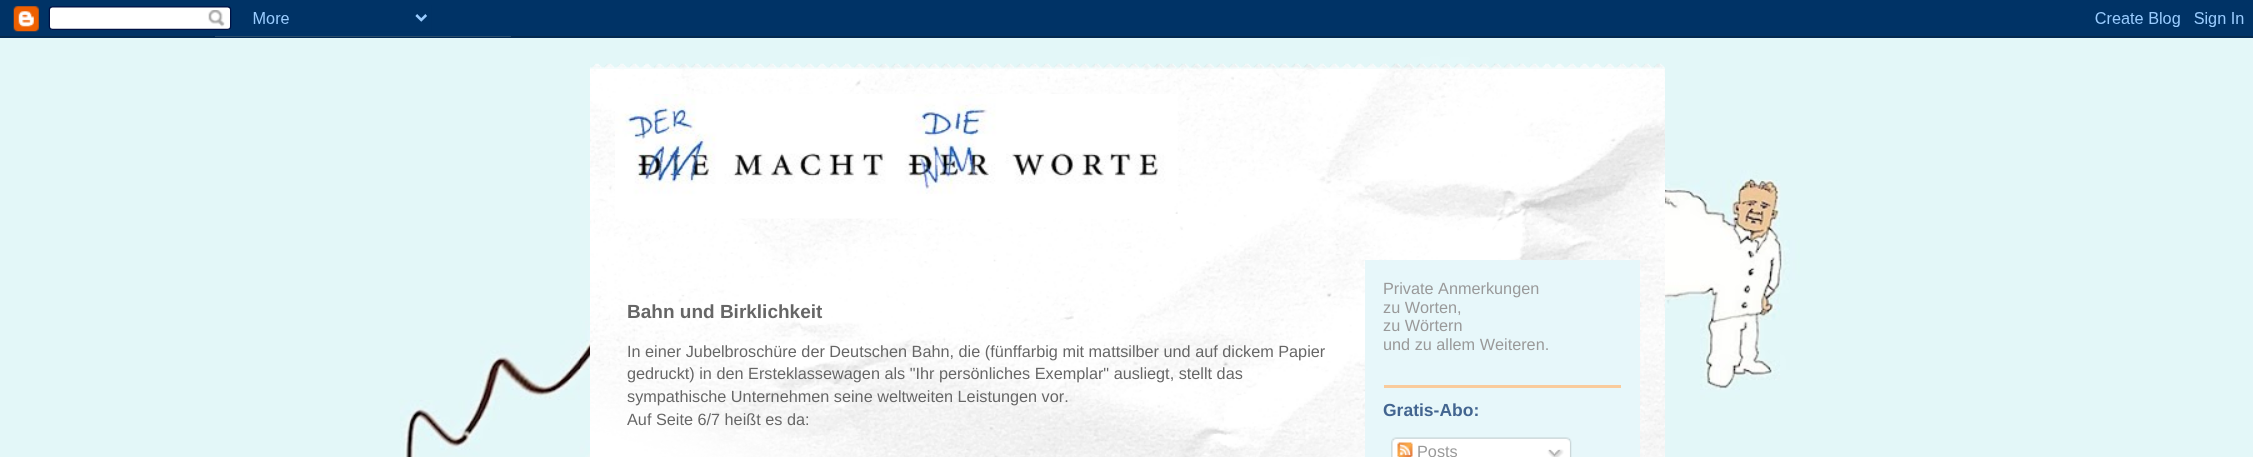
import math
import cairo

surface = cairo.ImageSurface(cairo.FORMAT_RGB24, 2253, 457)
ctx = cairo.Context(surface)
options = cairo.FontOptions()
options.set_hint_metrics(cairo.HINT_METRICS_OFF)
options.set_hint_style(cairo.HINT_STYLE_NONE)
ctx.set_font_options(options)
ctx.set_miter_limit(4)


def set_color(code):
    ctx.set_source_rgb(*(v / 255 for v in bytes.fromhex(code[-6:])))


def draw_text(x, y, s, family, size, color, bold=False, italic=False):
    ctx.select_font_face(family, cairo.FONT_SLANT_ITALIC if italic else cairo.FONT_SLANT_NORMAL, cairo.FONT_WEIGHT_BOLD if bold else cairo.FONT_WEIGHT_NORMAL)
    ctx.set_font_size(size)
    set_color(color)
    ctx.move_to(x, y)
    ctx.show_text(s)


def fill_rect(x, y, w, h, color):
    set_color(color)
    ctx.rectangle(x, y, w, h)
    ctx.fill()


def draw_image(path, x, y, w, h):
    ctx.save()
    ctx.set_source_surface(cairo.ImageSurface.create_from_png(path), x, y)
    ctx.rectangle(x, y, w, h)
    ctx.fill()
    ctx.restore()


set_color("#ffffff")
ctx.paint()
draw_image("assets/img1.png", 0, 36, 2253, 421)
draw_image("assets/img2.png", 0, 0, 2253, 38)
draw_image("assets/img3.png", 590, 63, 1075, 6)
fill_rect(590, 69, 1075, 388, "#ffffff")
draw_image("assets/img4.png", 590, 69, 1075, 388)
draw_image("assets/img5.png", 615, 94, 563, 125)
fill_rect(1365, 260, 275, 197, "#e7f7fa")
draw_text(627, 318, "Bahn und Birklichkeit", "Liberation Sans", 19, "#666666", bold=True)
draw_text(627, 357, "In einer Jubelbroschüre der Deutschen Bahn, die (fünffarbig mit mattsilber und auf dickem Papier", "Liberation Sans", 16.25, "#666666")
draw_text(627, 379, "gedruckt) in den Ersteklassewagen als \"Ihr persönliches Exemplar\" ausliegt, stellt das", "Liberation Sans", 16.25, "#666666")
draw_text(627, 402, "sympathische Unternehmen seine weltweiten Leistungen vor.", "Liberation Sans", 16.25, "#666666")
draw_text(627, 425, "Auf Seite 6/7 heißt es da:", "Liberation Sans", 16.25, "#666666")
fill_rect(1384, 385, 237, 3, "#f9cb9c")
draw_text(1383, 294, "Private Anmerkungen", "Liberation Sans", 16.25, "#999999")
draw_text(1383, 313, "zu Worten,", "Liberation Sans", 16.25, "#999999")
draw_text(1383, 331, "zu Wörtern", "Liberation Sans", 16.25, "#999999")
draw_text(1383, 350, "und zu allem Weiteren.", "Liberation Sans", 16.25, "#999999")
draw_text(1383, 416, "Gratis-Abo:", "Liberation Sans", 17.5, "#436590", bold=True)
draw_image("assets/img6.png", 1391, 437, 181, 20)
draw_image("assets/img7.png", 1397, 442, 16, 15)
draw_text(1417, 457, "Posts", "Liberation Sans", 16.25, "#999999")
draw_image("assets/img8.png", 1547, 449, 17, 8)
surface.write_to_png("output.png")
